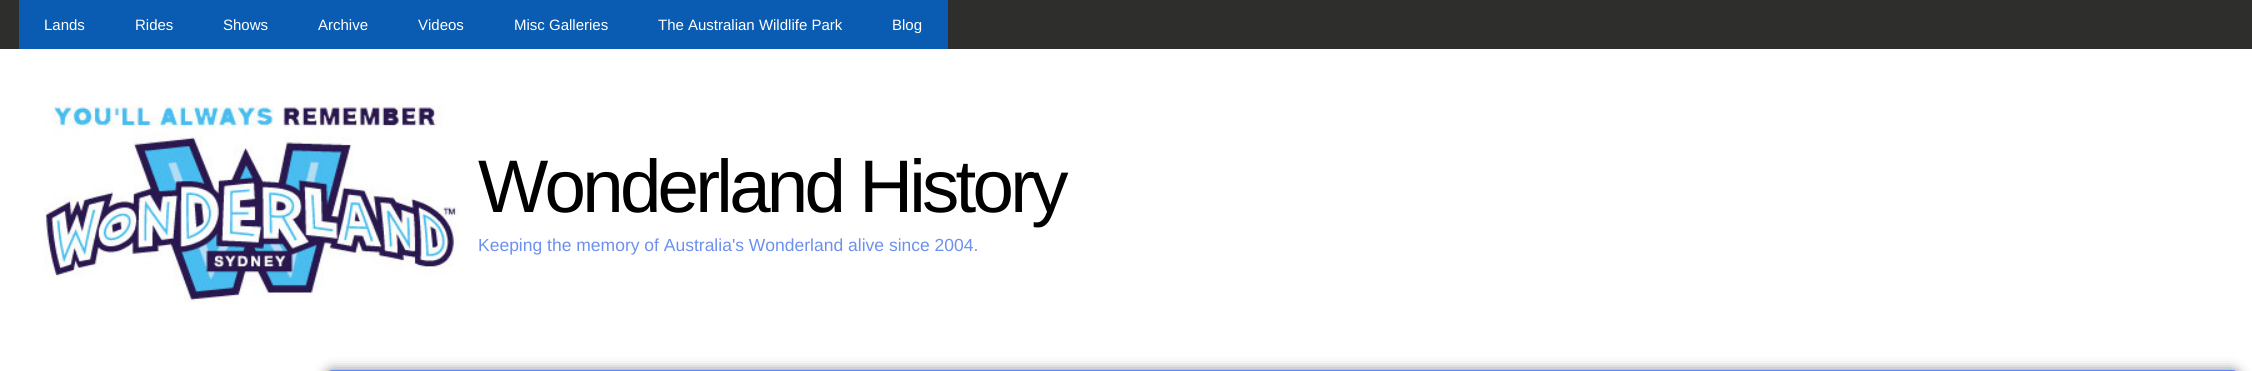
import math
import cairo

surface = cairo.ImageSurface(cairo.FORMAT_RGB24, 2252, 371)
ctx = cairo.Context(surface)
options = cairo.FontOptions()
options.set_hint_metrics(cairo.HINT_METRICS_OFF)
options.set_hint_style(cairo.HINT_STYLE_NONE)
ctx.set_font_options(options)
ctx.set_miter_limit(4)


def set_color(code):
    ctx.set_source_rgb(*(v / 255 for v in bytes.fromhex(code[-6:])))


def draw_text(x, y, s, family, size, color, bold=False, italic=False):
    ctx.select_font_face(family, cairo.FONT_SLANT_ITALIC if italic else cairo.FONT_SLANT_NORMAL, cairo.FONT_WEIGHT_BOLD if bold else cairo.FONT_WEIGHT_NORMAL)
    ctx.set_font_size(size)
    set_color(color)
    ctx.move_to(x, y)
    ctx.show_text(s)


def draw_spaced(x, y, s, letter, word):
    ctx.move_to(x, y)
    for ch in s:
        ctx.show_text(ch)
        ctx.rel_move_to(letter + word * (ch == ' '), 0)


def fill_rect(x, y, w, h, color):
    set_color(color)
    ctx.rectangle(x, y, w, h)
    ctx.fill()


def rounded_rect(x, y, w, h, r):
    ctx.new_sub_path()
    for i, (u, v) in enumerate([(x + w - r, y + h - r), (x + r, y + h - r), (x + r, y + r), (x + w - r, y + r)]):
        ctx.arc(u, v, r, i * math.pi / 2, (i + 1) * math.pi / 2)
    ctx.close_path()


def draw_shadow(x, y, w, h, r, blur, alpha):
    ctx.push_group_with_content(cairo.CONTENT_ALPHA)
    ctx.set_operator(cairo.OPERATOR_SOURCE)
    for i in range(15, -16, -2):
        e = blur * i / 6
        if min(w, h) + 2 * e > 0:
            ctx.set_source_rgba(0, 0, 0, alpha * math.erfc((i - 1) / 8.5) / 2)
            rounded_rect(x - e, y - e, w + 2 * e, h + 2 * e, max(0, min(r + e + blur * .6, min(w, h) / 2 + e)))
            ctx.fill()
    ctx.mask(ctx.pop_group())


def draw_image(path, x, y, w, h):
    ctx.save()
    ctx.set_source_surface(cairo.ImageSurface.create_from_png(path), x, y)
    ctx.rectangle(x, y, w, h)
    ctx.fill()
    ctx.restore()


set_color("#ffffff")
ctx.paint()
fill_rect(0, 0, 2252, 49, "#2e2e2d")
fill_rect(19, 0, 929, 5, "#095cb1")
fill_rect(19, 5, 929, 44, "#095cb1")
draw_text(44, 30, "Lands", "Liberation Sans", 15, "#ffffff")
draw_text(135, 30, "Rides", "Liberation Sans", 15, "#ffffff")
draw_text(223, 30, "Shows", "Liberation Sans", 15, "#ffffff")
draw_text(318, 30, "Archive", "Liberation Sans", 15, "#ffffff")
draw_text(418, 30, "Videos", "Liberation Sans", 15, "#ffffff")
draw_text(514, 30, "Misc Galleries", "Liberation Sans", 15, "#ffffff")
draw_text(658, 30, "The Australian Wildlife Park", "Liberation Sans", 15, "#ffffff")
draw_text(892, 30, "Blog", "Liberation Sans", 15, "#ffffff")
draw_image("assets/img1.png", 43, 105, 416, 198)
ctx.set_font_size(74.5)
set_color("#000000")
draw_spaced(478, 212, "Wonderland History", -3.75, 0)
draw_text(478, 251, "Keeping the memory of Australia's Wonderland alive since 2004.", "Liberation Sans", 17.5, "#6c90ee")
set_color("#4c4c4c")
draw_shadow(325, 370, 1915, 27, 8, 6, 0.7)
rounded_rect(325.5, 370.5, 1914, 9, 7.5)
set_color("#5b89ff")
ctx.set_line_width(1)
ctx.stroke()
surface.write_to_png("output.png")
